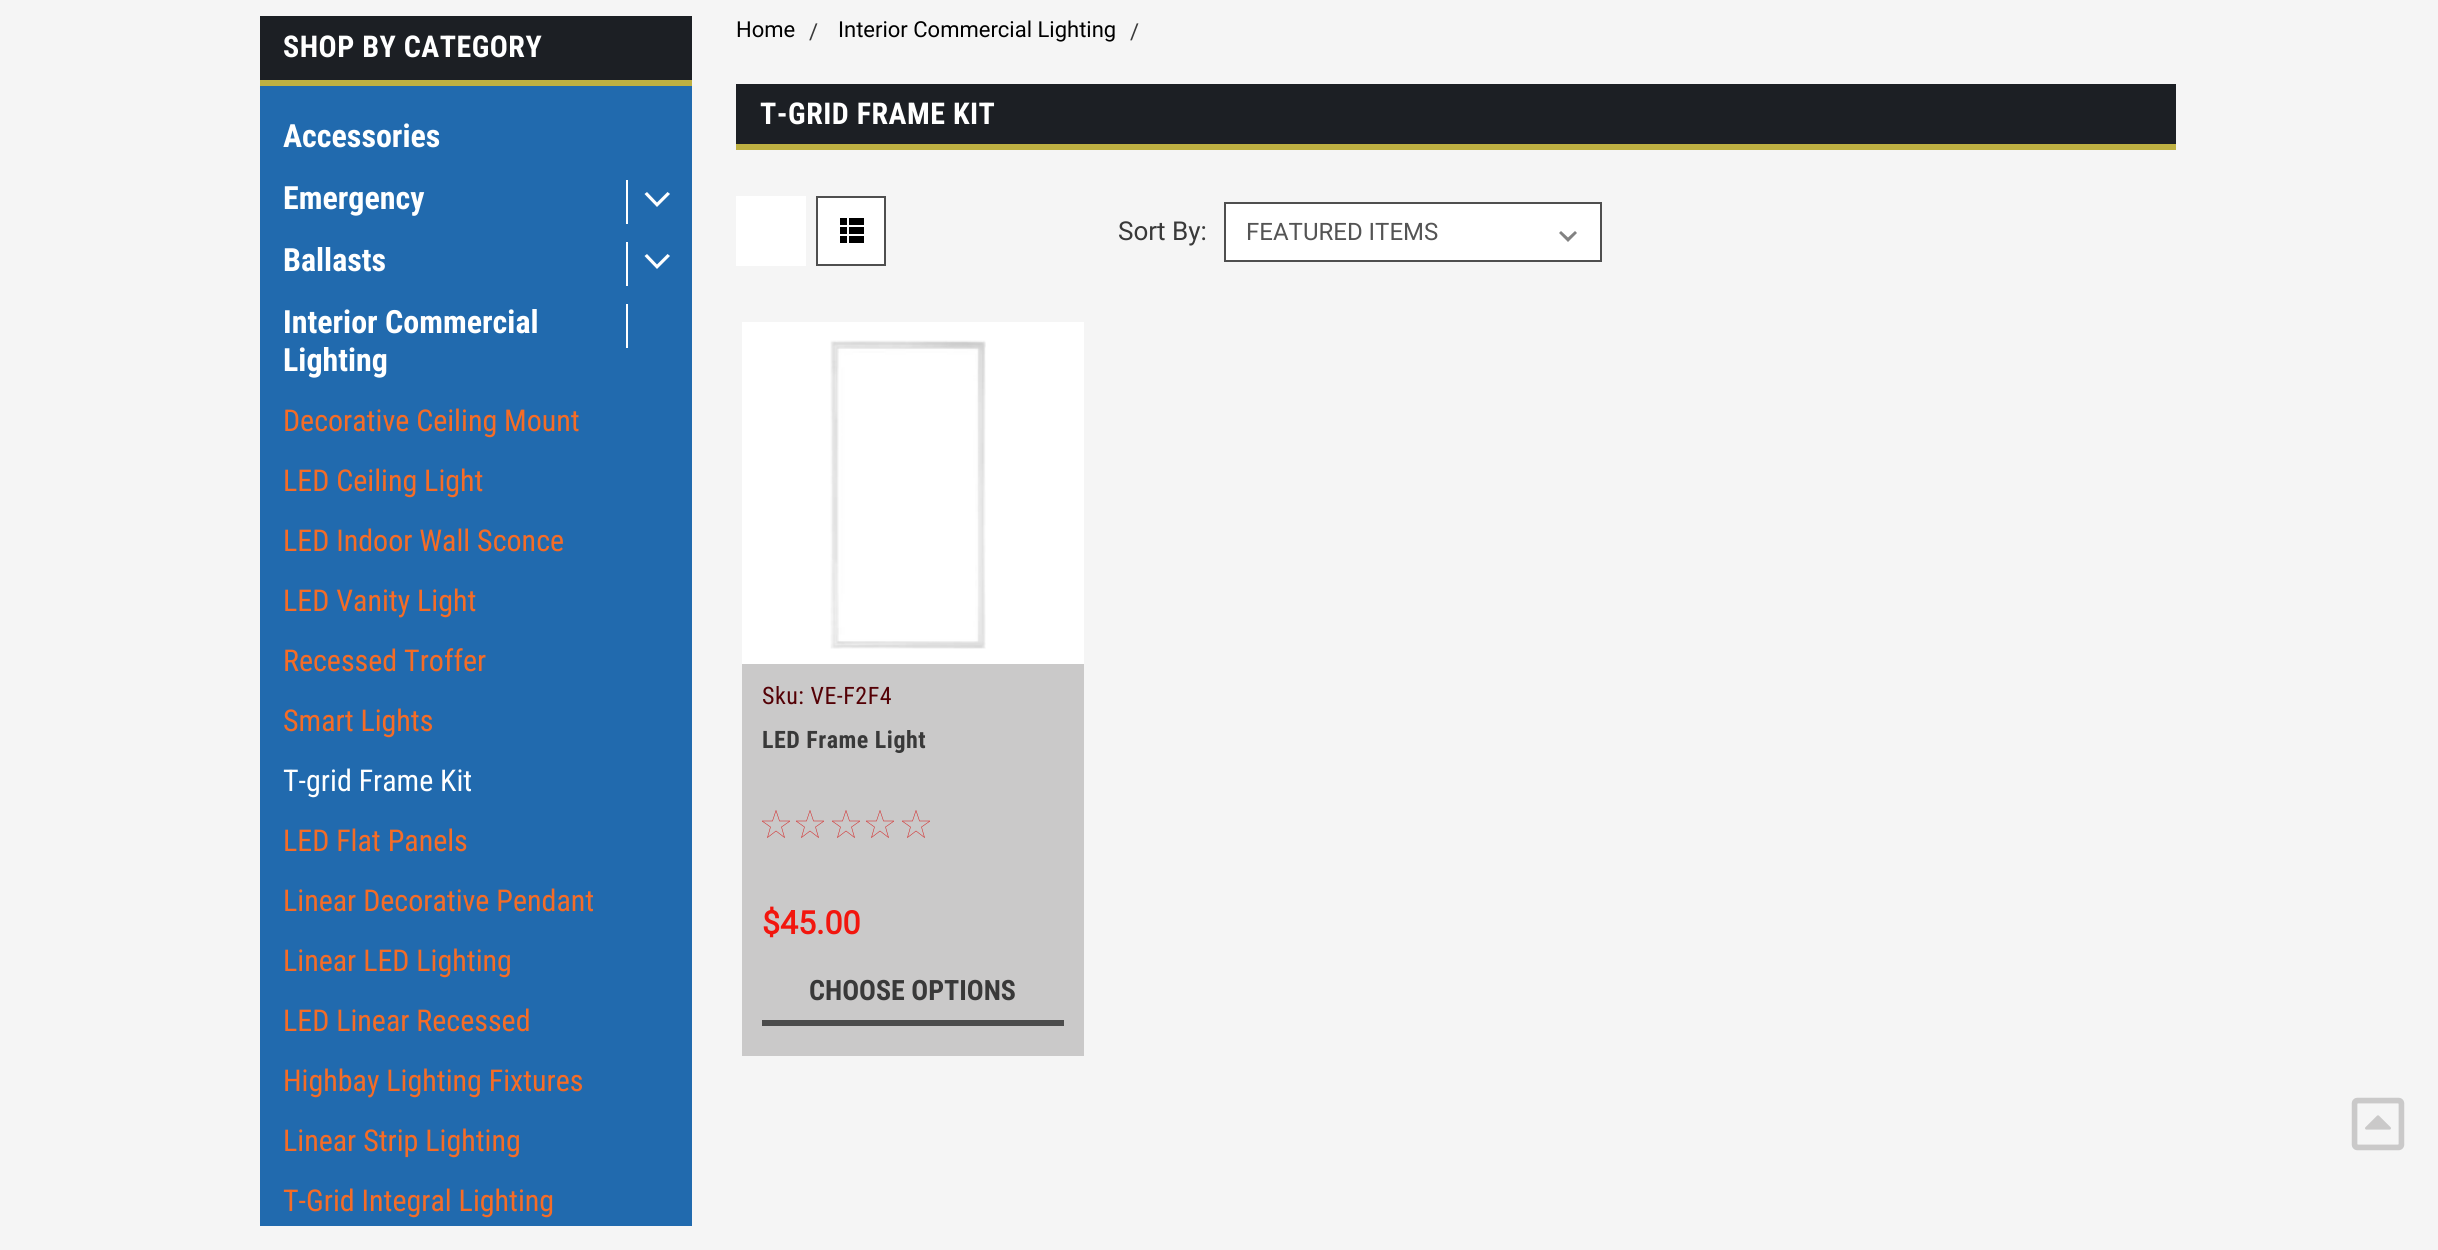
import math
import cairo

surface = cairo.ImageSurface(cairo.FORMAT_RGB24, 2438, 1250)
ctx = cairo.Context(surface)
options = cairo.FontOptions()
options.set_hint_metrics(cairo.HINT_METRICS_OFF)
options.set_hint_style(cairo.HINT_STYLE_NONE)
ctx.set_font_options(options)
ctx.set_miter_limit(4)


def set_color(code):
    ctx.set_source_rgb(*(v / 255 for v in bytes.fromhex(code[-6:])))


def draw_text(x, y, s, family, size, color, bold=False, italic=False):
    ctx.select_font_face(family, cairo.FONT_SLANT_ITALIC if italic else cairo.FONT_SLANT_NORMAL, cairo.FONT_WEIGHT_BOLD if bold else cairo.FONT_WEIGHT_NORMAL)
    ctx.set_font_size(size)
    set_color(color)
    ctx.move_to(x, y)
    ctx.show_text(s)


def draw_spaced(x, y, s, letter, word):
    ctx.move_to(x, y)
    for ch in s:
        ctx.show_text(ch)
        ctx.rel_move_to(letter + word * (ch == ' '), 0)


def fill_rect(x, y, w, h, color):
    set_color(color)
    ctx.rectangle(x, y, w, h)
    ctx.fill()


def draw_image(path, x, y, w, h):
    ctx.save()
    ctx.set_source_surface(cairo.ImageSurface.create_from_png(path), x, y)
    ctx.rectangle(x, y, w, h)
    ctx.fill()
    ctx.restore()


set_color("#f5f5f5")
ctx.paint()
fill_rect(260, 16, 432, 64, "#1c1f24")
fill_rect(260, 80, 440, 6, "#beb042")
ctx.select_font_face("Roboto Condensed", cairo.FONT_SLANT_NORMAL, cairo.FONT_WEIGHT_BOLD)
ctx.set_font_size(30)
set_color("#ffffff")
draw_spaced(283, 57, "SHOP BY CATEGORY", 0.5, 0)
fill_rect(260, 86, 432, 1140, "#216aae")
draw_text(283, 147, "Accessories", "Roboto Condensed", 32, "#ffffff", bold=True)
draw_text(283, 209, "Emergency", "Roboto Condensed", 32, "#ffffff", bold=True)
fill_rect(626, 180, 2, 44, "#ffffff")
ctx.new_path()
ctx.move_to(670, 194)
ctx.line_to(657, 207)
ctx.line_to(644.5, 194)
ctx.line_to(647, 192)
ctx.line_to(657, 202.5)
ctx.line_to(667.5, 192)
ctx.close_path()
ctx.fill()
draw_text(283, 271, "Ballasts", "Roboto Condensed", 32, "#ffffff", bold=True)
fill_rect(626, 242, 2, 44, "#ffffff")
ctx.new_path()
ctx.move_to(670, 256)
ctx.line_to(657, 269)
ctx.line_to(644.5, 256)
ctx.line_to(647, 254)
ctx.line_to(657, 264.5)
ctx.line_to(667.5, 254)
ctx.close_path()
ctx.fill()
draw_text(283, 333, "Interior Commercial", "Roboto Condensed", 32, "#ffffff", bold=True)
draw_text(283, 371, "Lighting", "Roboto Condensed", 32, "#ffffff", bold=True)
fill_rect(626, 304, 2, 44, "#ffffff")
draw_text(283, 431, "Decorative Ceiling Mount", "Roboto Condensed", 30, "#f56c26")
draw_text(283, 491, "LED Ceiling Light", "Roboto Condensed", 30, "#f56c26")
draw_text(283, 551, "LED Indoor Wall Sconce", "Roboto Condensed", 30, "#f56c26")
draw_text(283, 611, "LED Vanity Light", "Roboto Condensed", 30, "#f56c26")
draw_text(283, 671, "Recessed Troffer", "Roboto Condensed", 30, "#f56c26")
draw_text(283, 731, "Smart Lights", "Roboto Condensed", 30, "#f56c26")
draw_text(283, 791, "T-grid Frame Kit", "Roboto Condensed", 30, "#ffffff")
draw_text(283, 851, "LED Flat Panels", "Roboto Condensed", 30, "#f56c26")
draw_text(283, 911, "Linear Decorative Pendant", "Roboto Condensed", 30, "#f56c26")
draw_text(283, 971, "Linear LED Lighting", "Roboto Condensed", 30, "#f56c26")
draw_text(283, 1031, "LED Linear Recessed", "Roboto Condensed", 30, "#f56c26")
draw_text(283, 1091, "Highbay Lighting Fixtures", "Roboto Condensed", 30, "#f56c26")
draw_text(283, 1151, "Linear Strip Lighting", "Roboto Condensed", 30, "#f56c26")
draw_text(283, 1211, "T-Grid Integral Lighting", "Roboto Condensed", 30, "#f56c26")
fill_rect(692, 80, 8, 6, "#f5f5f5")
draw_text(736, 37, "Home", "Roboto", 22, "#000000")
draw_text(809, 39, "/", "Roboto", 22, "#393939")
draw_text(838, 37, "Interior Commercial Lighting", "Roboto", 22, "#000000")
draw_text(1130, 39, "/", "Roboto", 22, "#393939")
fill_rect(736, 84, 1440, 60, "#1c1f24")
fill_rect(736, 144, 1440, 6, "#beb042")
ctx.select_font_face("Roboto Condensed", cairo.FONT_SLANT_NORMAL, cairo.FONT_WEIGHT_BOLD)
ctx.set_font_size(30)
set_color("#ffffff")
draw_spaced(760, 124, "T-GRID FRAME KIT", 0.5, 0)
fill_rect(736, 196, 70, 70, "#ffffff")
ctx.rectangle(817, 197, 68, 68)
ctx.fill_preserve()
set_color("#4f4f4f")
ctx.stroke()
draw_image("assets/img1.png", 840, 218, 24, 25)
draw_text(1118, 240, "Sort By:", "Roboto", 26, "#393939")
fill_rect(1226, 204, 374, 56, "#ffffff")
set_color("#828282")
ctx.new_path()
ctx.move_to(1575, 231)
ctx.line_to(1568, 237.5)
ctx.line_to(1561, 231)
ctx.line_to(1559, 233)
ctx.line_to(1568, 242)
ctx.line_to(1577, 233)
ctx.close_path()
ctx.fill()
ctx.rectangle(1225, 203, 376, 58)
set_color("#4f4f4f")
ctx.stroke()
draw_text(1246, 240, "FEATURED ITEMS", "Roboto", 24, "#545454")
fill_rect(742, 664, 342, 392, "#cac9c9")
fill_rect(742, 322, 342, 342, "#ffffff")
draw_image("assets/img2.png", 830, 340, 156, 309)
ctx.select_font_face("Roboto Condensed")
set_color("#540005")
draw_spaced(762, 704, "Sku: VE-F2F4", 0.5, 0)
ctx.select_font_face("Roboto Condensed", cairo.FONT_SLANT_NORMAL, cairo.FONT_WEIGHT_BOLD)
set_color("#393939")
draw_spaced(762, 748, "LED Frame Light", 0.5, 0)
ctx.save()
ctx.rectangle(762, 810, 28, 28)
ctx.clip()
ctx.new_path()
ctx.move_to(776, 810.5)
ctx.line_to(779.5, 821)
ctx.line_to(790, 821)
ctx.line_to(781.5, 827)
ctx.line_to(784.5, 837.5)
ctx.line_to(776, 831)
ctx.line_to(767.5, 837.5)
ctx.line_to(770.5, 827)
ctx.line_to(762, 821)
ctx.line_to(772.5, 821)
ctx.close_path()
set_color("#d42020")
ctx.set_line_width(0.5)
ctx.stroke()
ctx.restore()
ctx.save()
ctx.rectangle(796, 810, 28, 28)
ctx.clip()
ctx.new_path()
ctx.move_to(810, 810.5)
ctx.line_to(813.5, 821)
ctx.line_to(824, 821)
ctx.line_to(815.5, 827)
ctx.line_to(818.5, 837.5)
ctx.line_to(810, 831)
ctx.line_to(801.5, 837.5)
ctx.line_to(804.5, 827)
ctx.line_to(796, 821)
ctx.line_to(806.5, 821)
ctx.close_path()
set_color("#d42020")
ctx.set_line_width(0.5)
ctx.stroke()
ctx.restore()
ctx.save()
ctx.rectangle(832, 810, 28, 28)
ctx.clip()
ctx.new_path()
ctx.move_to(846, 810.5)
ctx.line_to(849.5, 821)
ctx.line_to(860, 821)
ctx.line_to(851.5, 827)
ctx.line_to(854.5, 837.5)
ctx.line_to(846, 831)
ctx.line_to(837.5, 837.5)
ctx.line_to(840.5, 827)
ctx.line_to(832, 821)
ctx.line_to(842.5, 821)
ctx.close_path()
set_color("#d42020")
ctx.set_line_width(0.5)
ctx.stroke()
ctx.restore()
ctx.save()
ctx.rectangle(866, 810, 28, 28)
ctx.clip()
ctx.new_path()
ctx.move_to(880, 810.5)
ctx.line_to(883.5, 821)
ctx.line_to(894, 821)
ctx.line_to(885.5, 827)
ctx.line_to(888.5, 837.5)
ctx.line_to(880, 831)
ctx.line_to(871.5, 837.5)
ctx.line_to(874.5, 827)
ctx.line_to(866, 821)
ctx.line_to(876.5, 821)
ctx.close_path()
set_color("#d42020")
ctx.set_line_width(0.5)
ctx.stroke()
ctx.restore()
ctx.save()
ctx.rectangle(902, 810, 28, 28)
ctx.clip()
ctx.new_path()
ctx.move_to(916, 810.5)
ctx.line_to(919.5, 821)
ctx.line_to(930, 821)
ctx.line_to(921.5, 827)
ctx.line_to(924.5, 837.5)
ctx.line_to(916, 831)
ctx.line_to(907.5, 837.5)
ctx.line_to(910.5, 827)
ctx.line_to(902, 821)
ctx.line_to(912.5, 821)
ctx.close_path()
set_color("#d42020")
ctx.set_line_width(0.5)
ctx.stroke()
ctx.restore()
draw_text(762, 934, "$45.00", "Roboto", 32, "#f2160e", bold=True)
fill_rect(762, 1020, 302, 6, "#4c4c4c")
draw_text(809, 1000, "CHOOSE OPTIONS", "Roboto Condensed", 28, "#393939", bold=True)
draw_image("assets/img3.png", 2351, 1097, 54, 54)
surface.write_to_png("output.png")
